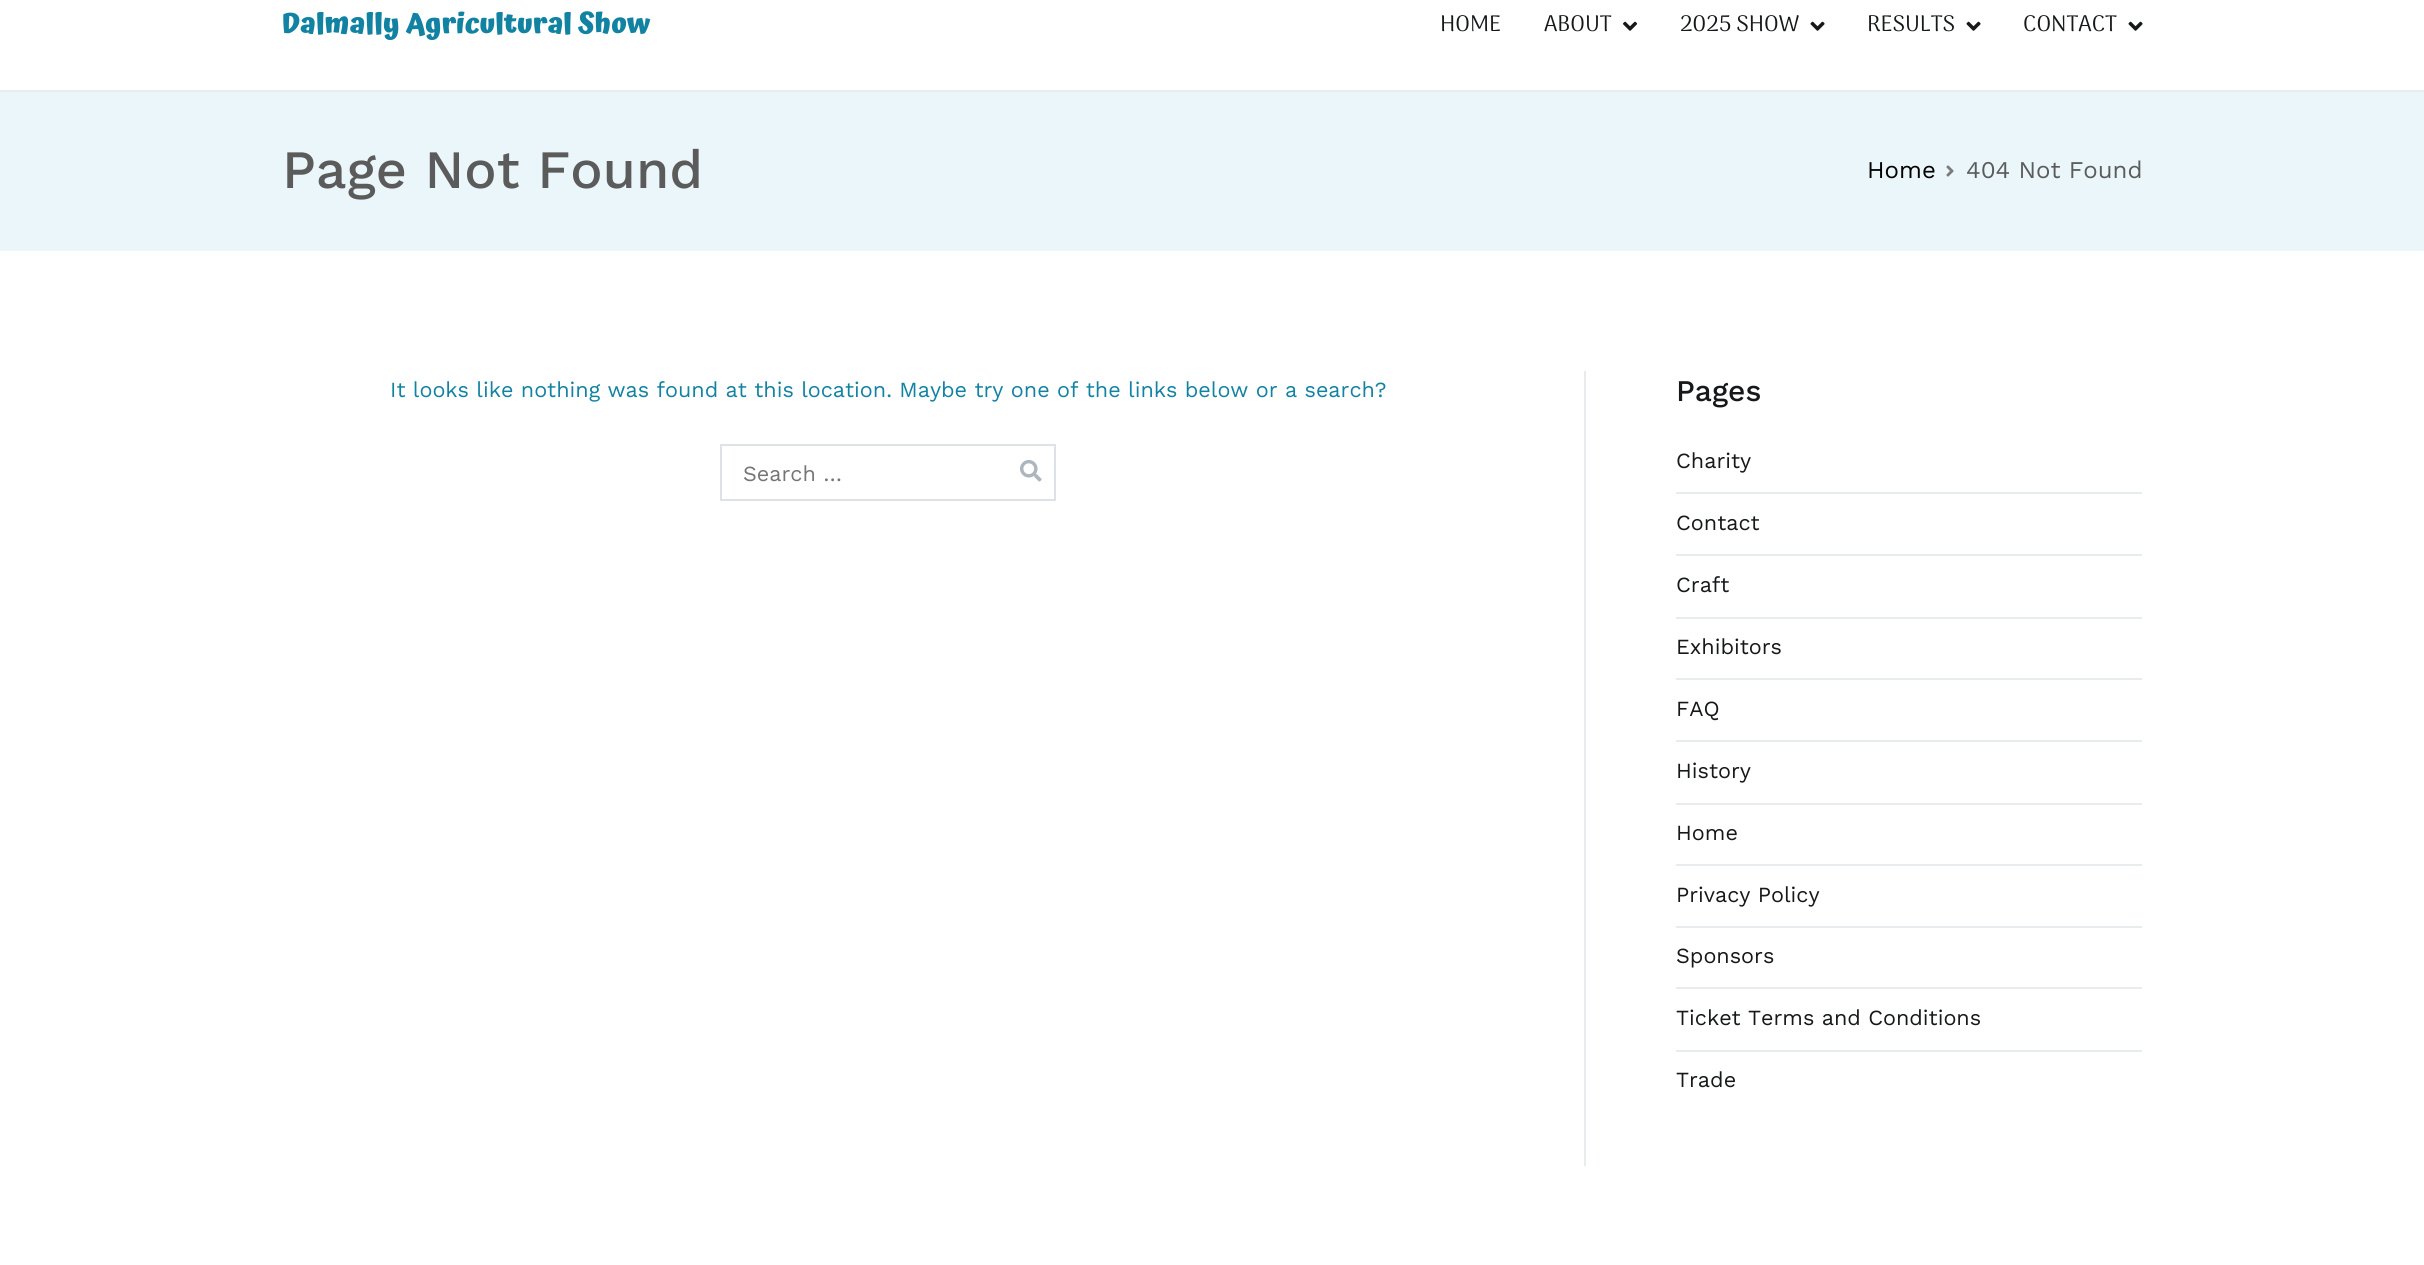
import math
import cairo

surface = cairo.ImageSurface(cairo.FORMAT_RGB24, 2424, 1265)
ctx = cairo.Context(surface)
options = cairo.FontOptions()
options.set_hint_metrics(cairo.HINT_METRICS_OFF)
options.set_hint_style(cairo.HINT_STYLE_NONE)
ctx.set_font_options(options)
ctx.set_miter_limit(4)


def set_color(code):
    ctx.set_source_rgb(*(v / 255 for v in bytes.fromhex(code[-6:])))


def draw_text(x, y, s, family, size, color, bold=False, italic=False):
    ctx.select_font_face(family, cairo.FONT_SLANT_ITALIC if italic else cairo.FONT_SLANT_NORMAL, cairo.FONT_WEIGHT_BOLD if bold else cairo.FONT_WEIGHT_NORMAL)
    ctx.set_font_size(size)
    set_color(color)
    ctx.move_to(x, y)
    ctx.show_text(s)


def fill_rect(x, y, w, h, color):
    set_color(color)
    ctx.rectangle(x, y, w, h)
    ctx.fill()


def draw_image(path, x, y, w, h):
    ctx.save()
    ctx.set_source_surface(cairo.ImageSurface.create_from_png(path), x, y)
    ctx.rectangle(x, y, w, h)
    ctx.fill()
    ctx.restore()


set_color("#ffffff")
ctx.paint()
fill_rect(0, 90, 2424, 2, "#e9ecef")
draw_text(282, 33, "Dalmally Agricultural Show", "Atma", 28.4, "#1282a2", bold=True)
draw_text(1440, 31, "HOME", "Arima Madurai", 22.5, "#16181a")
draw_text(1544, 31, "ABOUT", "Arima Madurai", 22.5, "#16181a")
draw_image("assets/img1.png", 1623, 21, 14, 10)
draw_text(1680, 31, "2025 SHOW", "Arima Madurai", 22.5, "#16181a")
draw_image("assets/img2.png", 1810, 21, 15, 10)
draw_text(1867, 31, "RESULTS", "Arima Madurai", 22.5, "#16181a")
draw_image("assets/img2.png", 1966, 21, 15, 10)
draw_text(2023, 31, "CONTACT", "Arima Madurai", 22.5, "#16181a")
draw_image("assets/img2.png", 2128, 21, 15, 10)
fill_rect(0, 92, 2424, 159, "#eaf6fa")
draw_text(282, 188, "Page Not Found", "Work Sans Medium", 54, "#5b5b5b")
draw_text(1867, 178, "Home", "Work Sans", 24, "#000000")
draw_image("assets/img3.png", 1946, 165, 8, 12)
draw_text(1966, 178, "404 Not Found", "Work Sans", 24, "#5b5b5b")
draw_text(390, 397, "It looks like nothing was found at this location. Maybe try one of the links below or a search?", "Work Sans", 21.6, "#1282a2")
ctx.rectangle(721, 445, 334, 55)
set_color("#dee2e6")
ctx.stroke()
draw_text(743, 481, "Search …", "Work Sans", 21.6, "#757575")
draw_image("assets/img4.png", 1020, 460, 22, 22)
fill_rect(1584, 371, 2, 795, "#e9ecef")
draw_text(1676, 401, "Pages", "Work Sans Medium", 30, "#16181a")
fill_rect(1676, 492, 466, 2, "#e9ecef")
draw_text(1676, 468, "Charity", "Work Sans", 21.6, "#16181a")
fill_rect(1676, 554, 466, 2, "#e9ecef")
draw_text(1676, 530, "Contact", "Work Sans", 21.6, "#16181a")
fill_rect(1676, 617, 466, 2, "#e9ecef")
draw_text(1676, 592, "Craft", "Work Sans", 21.6, "#16181a")
fill_rect(1676, 678, 466, 2, "#e9ecef")
draw_text(1676, 654, "Exhibitors", "Work Sans", 21.6, "#16181a")
fill_rect(1676, 740, 466, 2, "#e9ecef")
draw_text(1676, 716, "FAQ", "Work Sans", 21.6, "#16181a")
fill_rect(1676, 803, 466, 2, "#e9ecef")
draw_text(1676, 778, "History", "Work Sans", 21.6, "#16181a")
fill_rect(1676, 864, 466, 2, "#e9ecef")
draw_text(1676, 840, "Home", "Work Sans", 21.6, "#16181a")
fill_rect(1676, 926, 466, 2, "#e9ecef")
draw_text(1676, 902, "Privacy Policy", "Work Sans", 21.6, "#16181a")
fill_rect(1676, 987, 466, 2, "#e9ecef")
draw_text(1676, 963, "Sponsors", "Work Sans", 21.6, "#16181a")
fill_rect(1676, 1050, 466, 2, "#e9ecef")
draw_text(1676, 1025, "Ticket Terms and Conditions", "Work Sans", 21.6, "#16181a")
draw_text(1676, 1087, "Trade", "Work Sans", 21.6, "#16181a")
surface.write_to_png("output.png")
